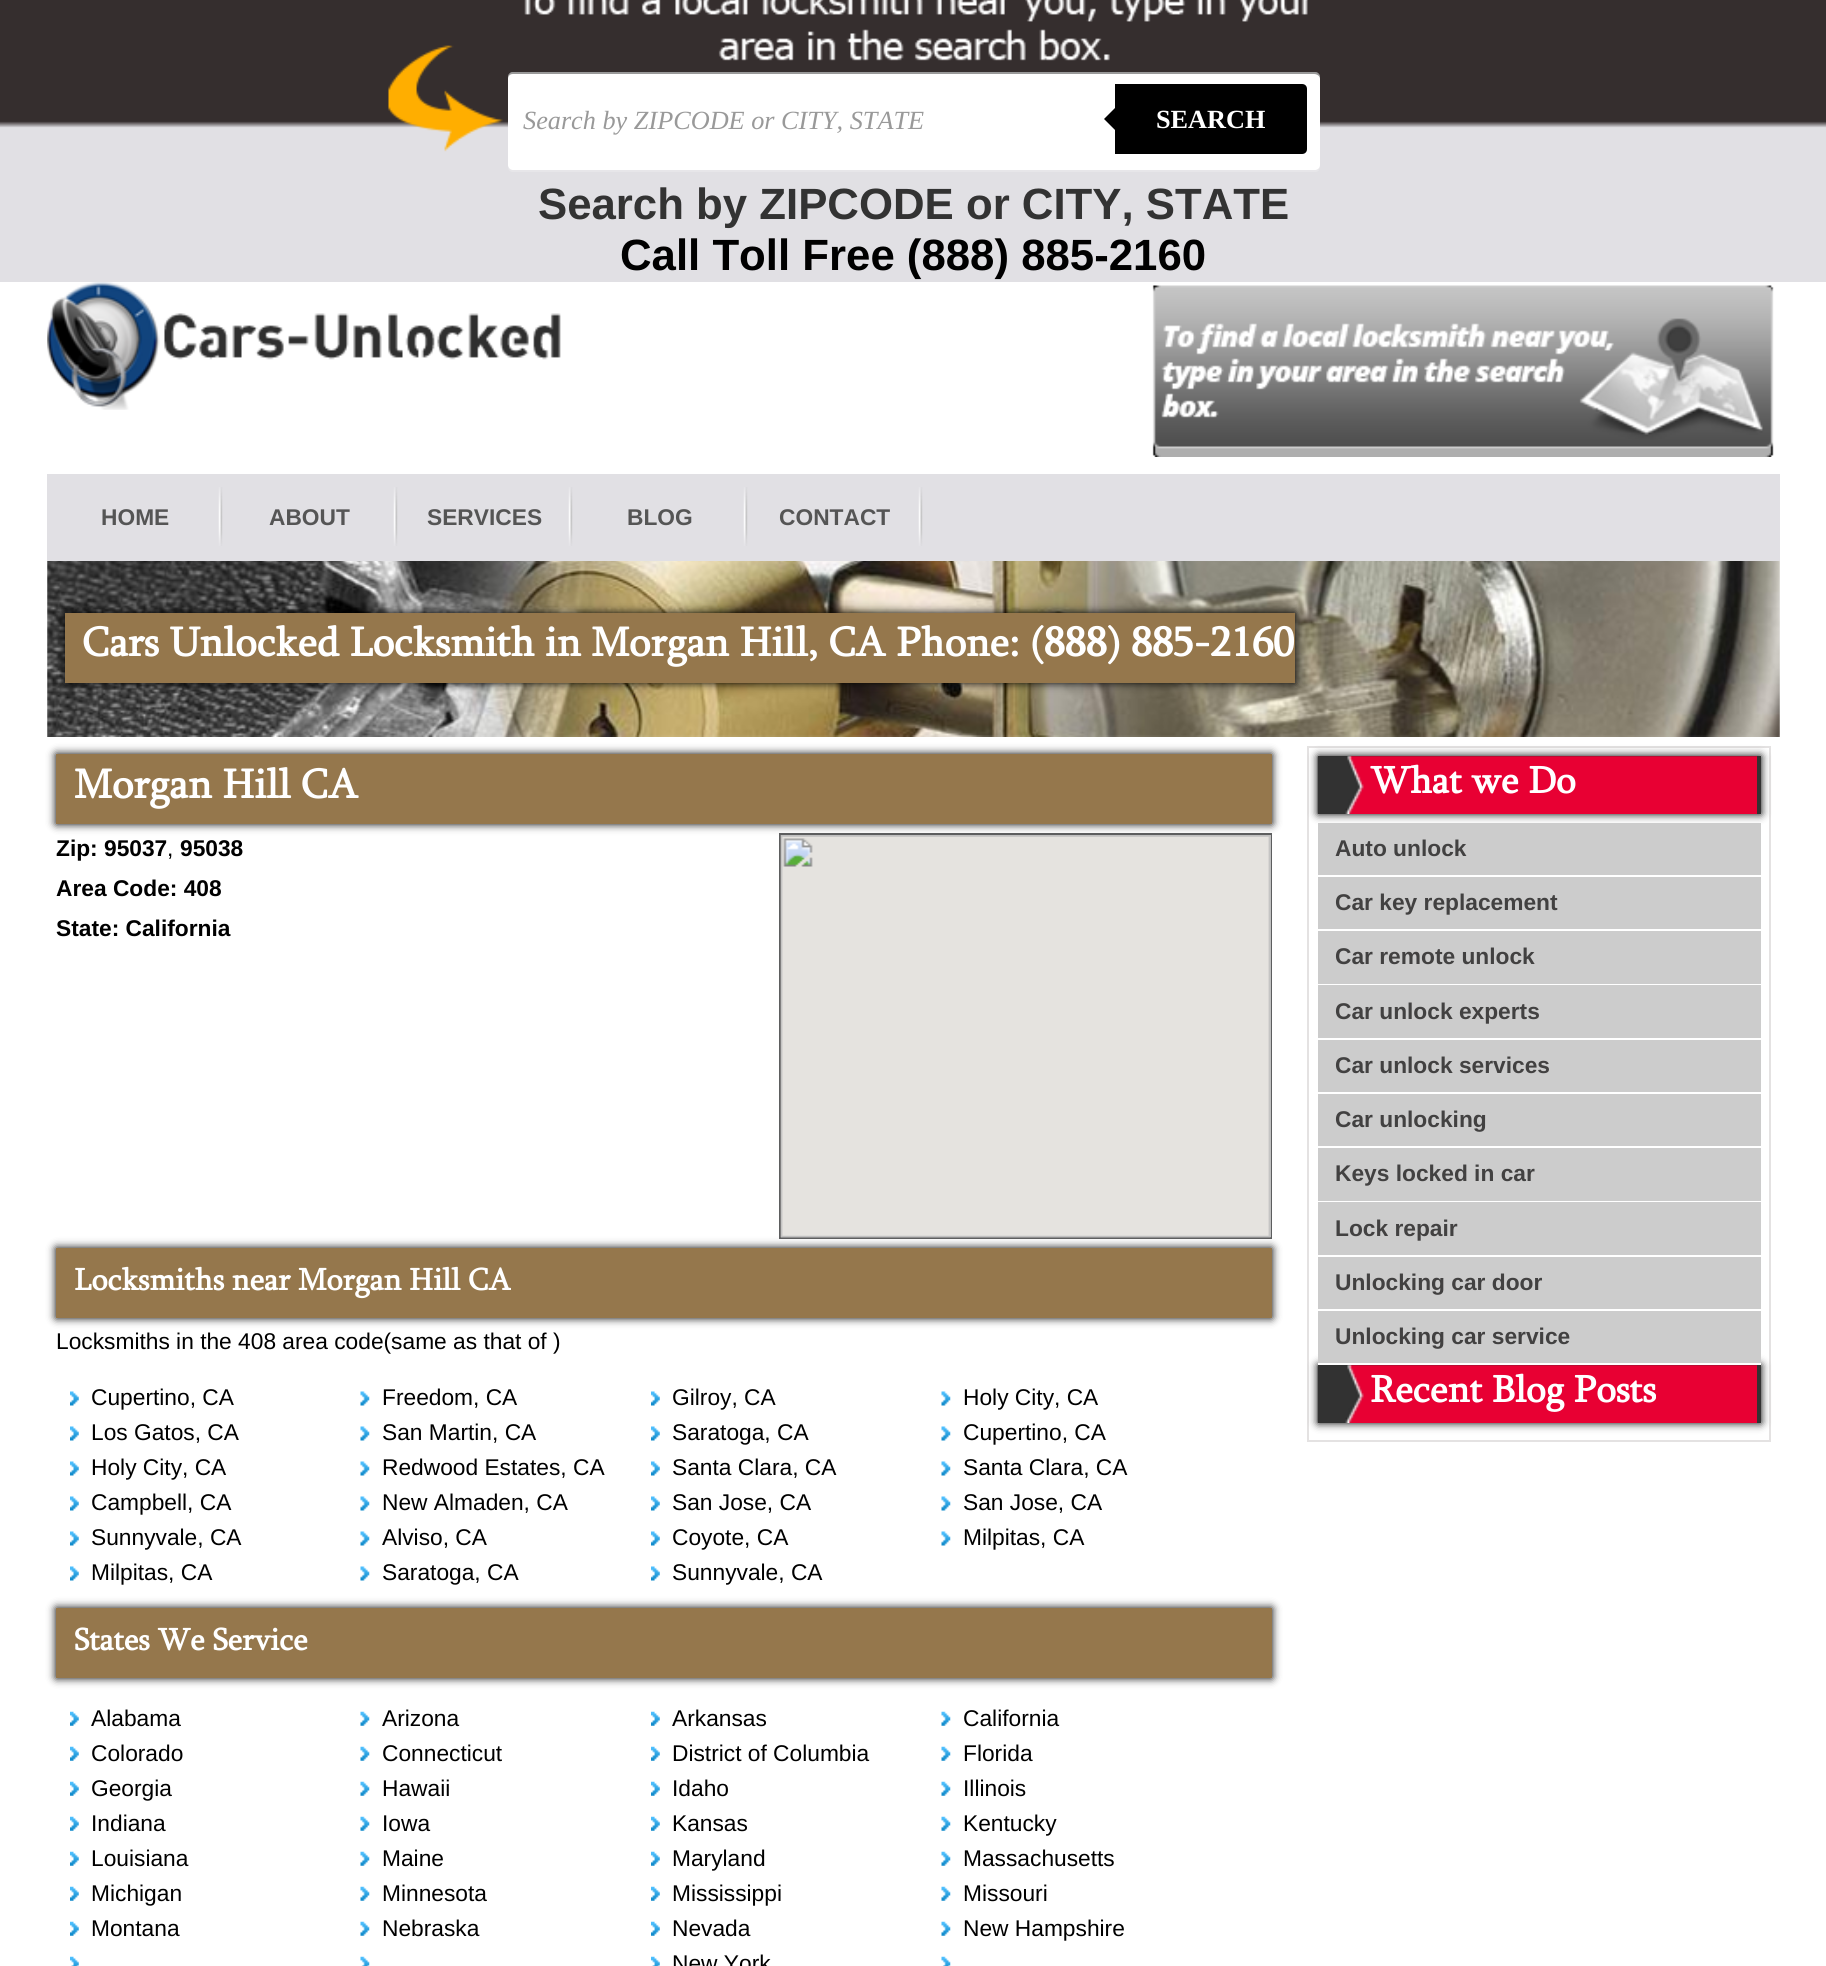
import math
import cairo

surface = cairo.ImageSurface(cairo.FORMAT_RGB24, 1826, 1966)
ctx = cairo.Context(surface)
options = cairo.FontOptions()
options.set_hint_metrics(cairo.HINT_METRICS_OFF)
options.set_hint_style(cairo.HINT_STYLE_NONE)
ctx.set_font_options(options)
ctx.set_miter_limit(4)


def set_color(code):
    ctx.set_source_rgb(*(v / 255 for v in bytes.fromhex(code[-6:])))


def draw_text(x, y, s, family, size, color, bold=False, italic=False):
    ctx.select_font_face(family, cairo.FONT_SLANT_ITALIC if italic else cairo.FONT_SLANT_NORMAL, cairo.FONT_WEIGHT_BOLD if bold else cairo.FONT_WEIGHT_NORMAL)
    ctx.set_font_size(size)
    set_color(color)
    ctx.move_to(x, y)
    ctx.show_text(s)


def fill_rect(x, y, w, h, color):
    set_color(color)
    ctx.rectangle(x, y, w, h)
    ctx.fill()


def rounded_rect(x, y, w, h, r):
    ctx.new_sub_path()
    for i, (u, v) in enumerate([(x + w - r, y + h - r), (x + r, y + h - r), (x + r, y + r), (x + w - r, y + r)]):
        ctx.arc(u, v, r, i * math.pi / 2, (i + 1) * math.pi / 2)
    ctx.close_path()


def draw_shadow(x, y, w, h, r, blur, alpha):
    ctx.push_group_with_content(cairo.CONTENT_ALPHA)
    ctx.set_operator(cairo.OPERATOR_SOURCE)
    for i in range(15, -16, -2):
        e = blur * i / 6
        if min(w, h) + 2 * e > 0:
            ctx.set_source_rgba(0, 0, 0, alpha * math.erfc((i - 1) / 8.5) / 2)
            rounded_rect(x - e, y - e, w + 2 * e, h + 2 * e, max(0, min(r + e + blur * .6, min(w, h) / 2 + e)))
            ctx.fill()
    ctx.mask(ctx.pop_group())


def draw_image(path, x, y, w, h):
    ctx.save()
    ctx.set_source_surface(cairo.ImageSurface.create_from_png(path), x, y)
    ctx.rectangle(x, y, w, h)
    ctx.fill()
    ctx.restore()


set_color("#ffffff")
ctx.paint()
gradient = cairo.LinearGradient(914, -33, 914, 282)
gradient.add_color_stop_rgba(0, 0.208, 0.18, 0.18, 1)
gradient.add_color_stop_rgba(0.49, 0.208, 0.18, 0.18, 1)
gradient.add_color_stop_rgba(0.51, 0.882, 0.878, 0.894, 1)
gradient.add_color_stop_rgba(1, 0.882, 0.878, 0.894, 1)
ctx.set_source(gradient)
ctx.rectangle(0, 0, 1826, 282)
ctx.fill()
draw_image("assets/img1.png", 388, 0, 920, 152)
ctx.set_source_rgba(1, 1, 1, 0.2)
ctx.new_path()
ctx.move_to(508, 167)
ctx.curve_to(508, 170, 510, 172, 513, 172)
ctx.line_to(1315, 172)
ctx.curve_to(1318, 172, 1320, 170, 1320, 167)
ctx.line_to(1320, 79)
ctx.line_to(1319, 77)
ctx.line_to(1320, 164)
ctx.curve_to(1320, 167, 1317, 170, 1314, 170)
ctx.line_to(513, 170)
ctx.curve_to(511, 170, 509, 169, 508, 167)
ctx.close_path()
ctx.fill()
set_color("#ffffff")
rounded_rect(508, 72, 812, 98, 5)
ctx.fill()
ctx.set_source_rgba(0, 0, 0, 0.4)
ctx.new_path()
ctx.move_to(513, 74)
ctx.line_to(1314, 74)
ctx.curve_to(1317, 74, 1320, 76, 1320, 79)
ctx.line_to(1320, 77)
ctx.curve_to(1320, 74, 1318, 72, 1315, 72)
ctx.line_to(513, 72)
ctx.curve_to(510, 72, 508, 74, 508, 77)
ctx.line_to(508, 79)
ctx.curve_to(508, 76, 510, 74, 513, 74)
ctx.close_path()
ctx.fill()
draw_text(523, 129, "Search by ZIPCODE or CITY, STATE", "Liberation Serif", 26.25, "#999999", italic=True)
set_color("#000000")
ctx.new_path()
ctx.move_to(1115, 84)
ctx.line_to(1302, 84)
ctx.curve_to(1305, 84, 1307, 86, 1307, 89)
ctx.line_to(1307, 149)
ctx.curve_to(1307, 152, 1305, 154, 1302, 154)
ctx.line_to(1115, 154)
ctx.close_path()
ctx.fill()
ctx.new_path()
ctx.move_to(1118, 105)
ctx.line_to(1118, 133)
ctx.line_to(1104, 119)
ctx.close_path()
ctx.fill()
draw_text(1156, 128, "SEARCH", "Liberation Serif", 26.25, "#ffffff", bold=True)
draw_text(538, 219, "Search by ZIPCODE or CITY, STATE", "Liberation Sans", 43.75, "#333333", bold=True)
draw_text(620, 270, "Call Toll Free (888) 885-2160", "Liberation Sans", 43.75, "#000000", bold=True)
draw_image("assets/img2.png", 47, 561, 1733, 176)
draw_image("assets/img3.png", 47, 282, 514, 128)
draw_image("assets/img4.png", 1152, 285, 622, 172)
fill_rect(47, 474, 1733, 87, "#e1e0e4")
draw_image("assets/img5.png", 218, 487, 5, 59)
draw_text(101, 525, "HOME", "Liberation Sans", 22.75, "#555555", bold=True)
draw_image("assets/img6.png", 393, 487, 5, 59)
draw_text(269, 525, "ABOUT", "Liberation Sans", 22.75, "#555555", bold=True)
draw_image("assets/img6.png", 568, 487, 5, 59)
draw_text(427, 525, "SERVICES", "Liberation Sans", 22.75, "#555555", bold=True)
draw_image("assets/img6.png", 743, 487, 5, 59)
draw_text(627, 525, "BLOG", "Liberation Sans", 22.75, "#555555", bold=True)
draw_image("assets/img6.png", 918, 487, 5, 59)
draw_text(779, 525, "CONTACT", "Liberation Sans", 22.75, "#555555", bold=True)
set_color("#000000")
draw_shadow(65, 613, 1230, 70, 0, 4.5, 1)
fill_rect(65, 613, 1230, 70, "#95774c")
draw_text(82, 656, "Cars Unlocked Locksmith in Morgan Hill, CA Phone: (888) 885-2160", "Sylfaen", 42, "#ffffff", bold=True)
set_color("#000000")
draw_shadow(56, 754, 1216, 70, 0, 4.5, 1)
fill_rect(56, 754, 1216, 70, "#95774c")
draw_text(74, 798, "Morgan Hill CA", "Sylfaen", 42, "#ffffff", bold=True)
draw_text(56, 856, "Zip: 95037", "Liberation Sans", 22.75, "#000000", bold=True)
draw_text(167, 856, ",", "Liberation Sans", 22.75, "#000000")
draw_text(180, 856, "95038", "Liberation Sans", 22.75, "#000000", bold=True)
set_color("#000000")
draw_shadow(56, 1248, 1216, 70, 0, 4.5, 1)
ctx.rectangle(780, 834, 491, 404)
set_color("#5d5e5f")
ctx.stroke()
draw_image("assets/img7.png", 780, 835, 491, 403)
draw_text(56, 896, "Area Code: 408", "Liberation Sans", 22.75, "#000000", bold=True)
draw_text(56, 936, "State: California", "Liberation Sans", 22.75, "#000000", bold=True)
fill_rect(56, 1248, 1216, 70, "#95774c")
draw_text(74, 1290, "Locksmiths near Morgan Hill CA", "Sylfaen", 31.5, "#ffffff", bold=True)
draw_text(56, 1349, "Locksmiths in the 408 area code(same as that of )", "Liberation Sans", 22.75, "#000000")
draw_image("assets/img8.png", 70, 1391, 9, 15)
draw_text(91, 1405, "Cupertino, CA", "Liberation Sans", 22.75, "#000000")
draw_image("assets/img9.png", 360, 1391, 10, 15)
draw_text(382, 1405, "Freedom, CA", "Liberation Sans", 22.75, "#000000")
draw_image("assets/img10.png", 651, 1391, 9, 15)
draw_text(672, 1405, "Gilroy, CA", "Liberation Sans", 22.75, "#000000")
draw_image("assets/img11.png", 941, 1391, 10, 15)
draw_text(963, 1405, "Holy City, CA", "Liberation Sans", 22.75, "#000000")
draw_image("assets/img8.png", 70, 1426, 9, 15)
draw_text(91, 1440, "Los Gatos, CA", "Liberation Sans", 22.75, "#000000")
draw_image("assets/img9.png", 360, 1426, 10, 15)
draw_text(382, 1440, "San Martin, CA", "Liberation Sans", 22.75, "#000000")
draw_image("assets/img10.png", 651, 1426, 9, 15)
draw_text(672, 1440, "Saratoga, CA", "Liberation Sans", 22.75, "#000000")
draw_image("assets/img11.png", 941, 1426, 10, 15)
draw_text(963, 1440, "Cupertino, CA", "Liberation Sans", 22.75, "#000000")
draw_image("assets/img8.png", 70, 1461, 9, 15)
draw_text(91, 1475, "Holy City, CA", "Liberation Sans", 22.75, "#000000")
draw_image("assets/img9.png", 360, 1461, 10, 15)
draw_text(382, 1475, "Redwood Estates, CA", "Liberation Sans", 22.75, "#000000")
draw_image("assets/img10.png", 651, 1461, 9, 15)
draw_text(672, 1475, "Santa Clara, CA", "Liberation Sans", 22.75, "#000000")
draw_image("assets/img11.png", 941, 1461, 10, 15)
draw_text(963, 1475, "Santa Clara, CA", "Liberation Sans", 22.75, "#000000")
draw_image("assets/img8.png", 70, 1496, 9, 15)
draw_text(91, 1510, "Campbell, CA", "Liberation Sans", 22.75, "#000000")
draw_image("assets/img9.png", 360, 1496, 10, 15)
draw_text(382, 1510, "New Almaden, CA", "Liberation Sans", 22.75, "#000000")
draw_image("assets/img10.png", 651, 1496, 9, 15)
draw_text(672, 1510, "San Jose, CA", "Liberation Sans", 22.75, "#000000")
draw_image("assets/img11.png", 941, 1496, 10, 15)
draw_text(963, 1510, "San Jose, CA", "Liberation Sans", 22.75, "#000000")
draw_image("assets/img8.png", 70, 1531, 9, 15)
draw_text(91, 1545, "Sunnyvale, CA", "Liberation Sans", 22.75, "#000000")
draw_image("assets/img9.png", 360, 1531, 10, 15)
draw_text(382, 1545, "Alviso, CA", "Liberation Sans", 22.75, "#000000")
draw_image("assets/img10.png", 651, 1531, 9, 15)
draw_text(672, 1545, "Coyote, CA", "Liberation Sans", 22.75, "#000000")
draw_image("assets/img11.png", 941, 1531, 10, 15)
draw_text(963, 1545, "Milpitas, CA", "Liberation Sans", 22.75, "#000000")
draw_image("assets/img8.png", 70, 1566, 9, 15)
draw_text(91, 1580, "Milpitas, CA", "Liberation Sans", 22.75, "#000000")
draw_image("assets/img9.png", 360, 1566, 10, 15)
draw_text(382, 1580, "Saratoga, CA", "Liberation Sans", 22.75, "#000000")
draw_image("assets/img10.png", 651, 1566, 9, 15)
draw_text(672, 1580, "Sunnyvale, CA", "Liberation Sans", 22.75, "#000000")
set_color("#000000")
draw_shadow(56, 1608, 1216, 70, 0, 4.5, 1)
fill_rect(56, 1608, 1216, 70, "#95774c")
draw_text(74, 1650, "States We Service", "Sylfaen", 31.5, "#ffffff", bold=True)
draw_image("assets/img12.png", 70, 1711, 9, 15)
draw_text(91, 1726, "Alabama", "Liberation Sans", 22.75, "#000000")
draw_image("assets/img13.png", 360, 1711, 10, 15)
draw_text(382, 1726, "Arizona", "Liberation Sans", 22.75, "#000000")
draw_image("assets/img14.png", 651, 1711, 9, 15)
draw_text(672, 1726, "Arkansas", "Liberation Sans", 22.75, "#000000")
draw_image("assets/img15.png", 941, 1711, 10, 15)
draw_text(963, 1726, "California", "Liberation Sans", 22.75, "#000000")
draw_image("assets/img12.png", 70, 1746, 9, 15)
draw_text(91, 1761, "Colorado", "Liberation Sans", 22.75, "#000000")
draw_image("assets/img13.png", 360, 1746, 10, 15)
draw_text(382, 1761, "Connecticut", "Liberation Sans", 22.75, "#000000")
draw_image("assets/img14.png", 651, 1746, 9, 15)
draw_text(672, 1761, "District of Columbia", "Liberation Sans", 22.75, "#000000")
draw_image("assets/img15.png", 941, 1746, 10, 15)
draw_text(963, 1761, "Florida", "Liberation Sans", 22.75, "#000000")
draw_image("assets/img12.png", 70, 1781, 9, 15)
draw_text(91, 1796, "Georgia", "Liberation Sans", 22.75, "#000000")
draw_image("assets/img13.png", 360, 1781, 10, 15)
draw_text(382, 1796, "Hawaii", "Liberation Sans", 22.75, "#000000")
draw_image("assets/img14.png", 651, 1781, 9, 15)
draw_text(672, 1796, "Idaho", "Liberation Sans", 22.75, "#000000")
draw_image("assets/img15.png", 941, 1781, 10, 15)
draw_text(963, 1796, "Illinois", "Liberation Sans", 22.75, "#000000")
draw_image("assets/img12.png", 70, 1816, 9, 15)
draw_text(91, 1831, "Indiana", "Liberation Sans", 22.75, "#000000")
draw_image("assets/img13.png", 360, 1816, 10, 15)
draw_text(382, 1831, "Iowa", "Liberation Sans", 22.75, "#000000")
draw_image("assets/img14.png", 651, 1816, 9, 15)
draw_text(672, 1831, "Kansas", "Liberation Sans", 22.75, "#000000")
draw_image("assets/img15.png", 941, 1816, 10, 15)
draw_text(963, 1831, "Kentucky", "Liberation Sans", 22.75, "#000000")
draw_image("assets/img12.png", 70, 1851, 9, 15)
draw_text(91, 1866, "Louisiana", "Liberation Sans", 22.75, "#000000")
draw_image("assets/img13.png", 360, 1851, 10, 15)
draw_text(382, 1866, "Maine", "Liberation Sans", 22.75, "#000000")
draw_image("assets/img14.png", 651, 1851, 9, 15)
draw_text(672, 1866, "Maryland", "Liberation Sans", 22.75, "#000000")
draw_image("assets/img15.png", 941, 1851, 10, 15)
draw_text(963, 1866, "Massachusetts", "Liberation Sans", 22.75, "#000000")
draw_image("assets/img12.png", 70, 1886, 9, 15)
draw_text(91, 1901, "Michigan", "Liberation Sans", 22.75, "#000000")
draw_image("assets/img13.png", 360, 1886, 10, 15)
draw_text(382, 1901, "Minnesota", "Liberation Sans", 22.75, "#000000")
draw_image("assets/img14.png", 651, 1886, 9, 15)
draw_text(672, 1901, "Mississippi", "Liberation Sans", 22.75, "#000000")
draw_image("assets/img15.png", 941, 1886, 10, 15)
draw_text(963, 1901, "Missouri", "Liberation Sans", 22.75, "#000000")
draw_image("assets/img12.png", 70, 1921, 9, 15)
draw_text(91, 1936, "Montana", "Liberation Sans", 22.75, "#000000")
draw_image("assets/img13.png", 360, 1921, 10, 15)
draw_text(382, 1936, "Nebraska", "Liberation Sans", 22.75, "#000000")
draw_image("assets/img14.png", 651, 1921, 9, 15)
draw_text(672, 1936, "Nevada", "Liberation Sans", 22.75, "#000000")
draw_image("assets/img15.png", 941, 1921, 10, 15)
draw_text(963, 1936, "New Hampshire", "Liberation Sans", 22.75, "#000000")
draw_image("assets/img16.png", 70, 1956, 9, 10)
draw_image("assets/img17.png", 360, 1956, 10, 10)
draw_image("assets/img18.png", 651, 1956, 9, 10)
draw_text(672, 1971, "New York", "Liberation Sans", 22.75, "#000000")
draw_image("assets/img19.png", 941, 1956, 10, 10)
ctx.rectangle(1308, 747, 462, 694)
set_color("#e4e2e2")
ctx.stroke()
set_color("#000000")
draw_shadow(1318, 756, 443, 58, 0, 4.5, 1)
fill_rect(1318, 756, 443, 58, "#323232")
draw_image("assets/img20.png", 1317, 756, 440, 58)
draw_text(1370, 793, "What we Do", "Sylfaen", 38.5, "#ffffff", bold=True)
fill_rect(1318, 823, 443, 52, "#cccccc")
draw_text(1335, 856, "Auto unlock", "Liberation Sans", 22.75, "#424141", bold=True)
fill_rect(1318, 877, 443, 52, "#cccccc")
draw_text(1335, 910, "Car key replacement", "Liberation Sans", 22.75, "#424141", bold=True)
fill_rect(1318, 931, 443, 53, "#cccccc")
draw_text(1335, 964, "Car remote unlock", "Liberation Sans", 22.75, "#424141", bold=True)
fill_rect(1318, 985, 443, 53, "#cccccc")
draw_text(1335, 1019, "Car unlock experts", "Liberation Sans", 22.75, "#424141", bold=True)
fill_rect(1318, 1040, 443, 52, "#cccccc")
draw_text(1335, 1073, "Car unlock services", "Liberation Sans", 22.75, "#424141", bold=True)
fill_rect(1318, 1094, 443, 52, "#cccccc")
draw_text(1335, 1127, "Car unlocking", "Liberation Sans", 22.75, "#424141", bold=True)
fill_rect(1318, 1148, 443, 53, "#cccccc")
draw_text(1335, 1181, "Keys locked in car", "Liberation Sans", 22.75, "#424141", bold=True)
fill_rect(1318, 1202, 443, 53, "#cccccc")
draw_text(1335, 1236, "Lock repair", "Liberation Sans", 22.75, "#424141", bold=True)
fill_rect(1318, 1257, 443, 52, "#cccccc")
draw_text(1335, 1290, "Unlocking car door", "Liberation Sans", 22.75, "#424141", bold=True)
set_color("#000000")
draw_shadow(1318, 1365, 443, 58, 0, 4.5, 1)
fill_rect(1318, 1311, 443, 52, "#cccccc")
fill_rect(1318, 1363, 443, 2, "#ffffff")
draw_text(1335, 1344, "Unlocking car service", "Liberation Sans", 22.75, "#424141", bold=True)
fill_rect(1318, 1365, 443, 58, "#323232")
draw_image("assets/img20.png", 1317, 1365, 440, 58)
draw_text(1370, 1402, "Recent Blog Posts", "Sylfaen", 38.5, "#ffffff", bold=True)
surface.write_to_png("output.png")
